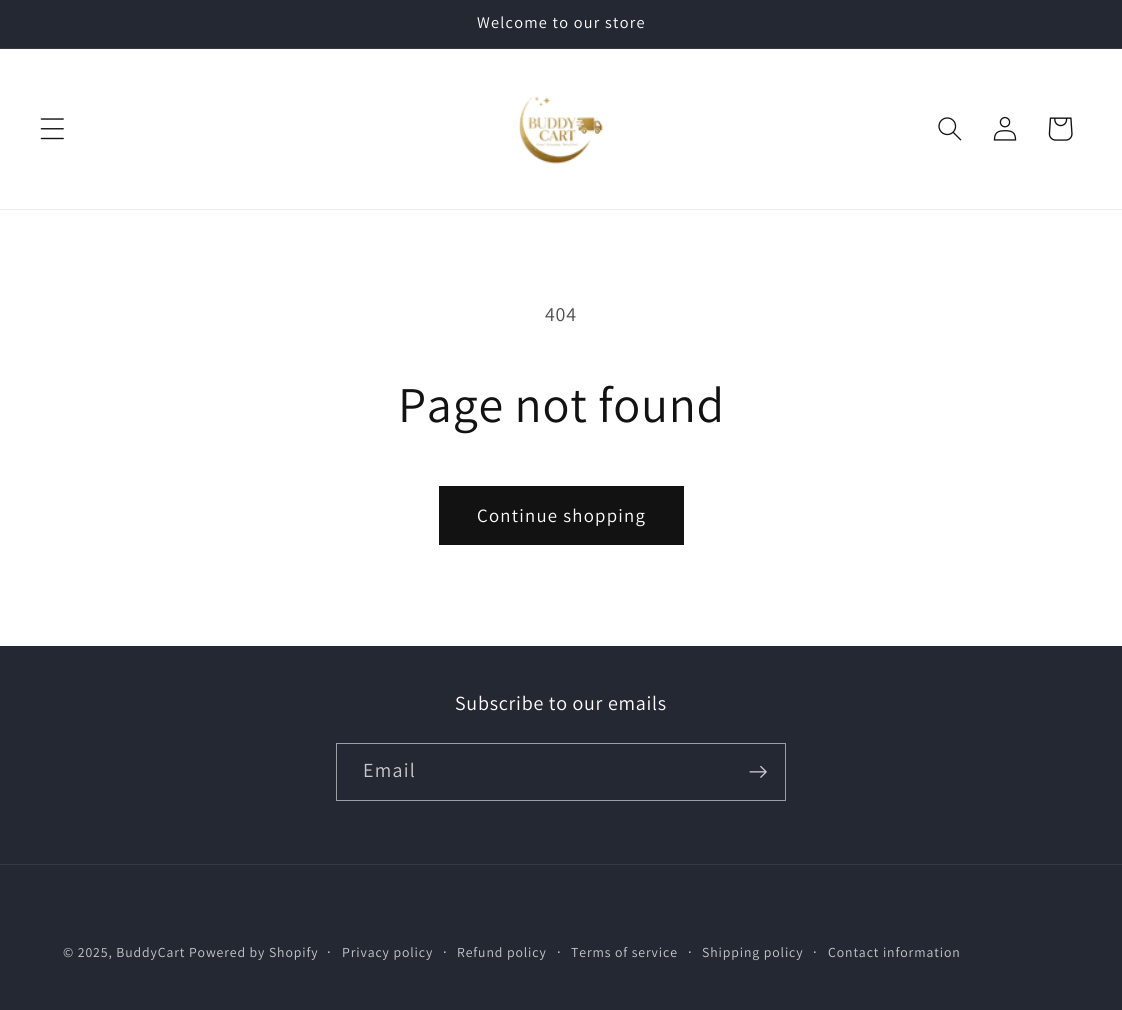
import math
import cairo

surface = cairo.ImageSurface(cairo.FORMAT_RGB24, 1122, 1010)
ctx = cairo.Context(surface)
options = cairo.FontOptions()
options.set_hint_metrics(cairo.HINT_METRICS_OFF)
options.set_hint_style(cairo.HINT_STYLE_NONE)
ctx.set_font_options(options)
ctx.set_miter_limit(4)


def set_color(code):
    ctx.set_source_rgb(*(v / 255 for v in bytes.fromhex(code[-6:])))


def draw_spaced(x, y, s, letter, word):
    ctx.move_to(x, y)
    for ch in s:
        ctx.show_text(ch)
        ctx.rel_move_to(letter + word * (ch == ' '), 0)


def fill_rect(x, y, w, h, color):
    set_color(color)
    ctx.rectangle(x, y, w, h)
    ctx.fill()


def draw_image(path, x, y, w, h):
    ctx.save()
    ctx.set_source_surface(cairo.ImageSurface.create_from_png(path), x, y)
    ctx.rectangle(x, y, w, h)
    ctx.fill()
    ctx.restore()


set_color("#ffffff")
ctx.paint()
fill_rect(0, 0, 1122, 48, "#242833")
fill_rect(0, 48, 1122, 1, "#363943")
ctx.select_font_face("Assistant")
ctx.set_font_size(16.25)
set_color("#ffffff")
draw_spaced(477, 28, "Welcome to our store", 1.25, 0)
fill_rect(0, 209, 1122, 1, "#ececec")
draw_image("assets/img1.png", 40, 118, 24, 22)
draw_image("assets/img2.png", 518, 96, 85, 68)
draw_image("assets/img3.png", 938, 117, 24, 24)
draw_image("assets/img4.png", 993, 116, 24, 25)
draw_image("assets/img5.png", 1048, 117, 25, 24)
ctx.set_font_size(20)
set_color("#4d4d4d")
draw_spaced(545, 321, "404", 0.75, 0)
ctx.set_font_size(50)
set_color("#121212")
draw_spaced(398, 422, "Page not found", 0.75, 0)
fill_rect(439, 486, 245, 59, "#121212")
ctx.set_font_size(18.75)
set_color("#ffffff")
draw_spaced(477, 522, "Continue shopping", 1.25, 0)
fill_rect(0, 646, 1122, 364, "#242833")
ctx.set_font_size(20)
set_color("#ffffff")
draw_spaced(455, 710, "Subscribe to our emails", 0.75, 0)
ctx.rectangle(336.5, 743.5, 449, 57)
set_color("#9c9ea3")
ctx.set_line_width(1)
ctx.stroke()
set_color("#c8c9cc")
draw_spaced(363, 777, "Email", 1.25, 0)
draw_image("assets/img6.png", 749, 765, 18, 13)
fill_rect(0, 864, 1122, 1, "#363943")
ctx.set_font_size(13.75)
set_color("#c8c9cc")
draw_spaced(63, 957, "© 2025, BuddyCart Powered by Shopify", 0.9, 0)
ctx.set_font_size(15)
draw_spaced(327, 957, "·", 0.9, 0)
ctx.set_font_size(13.75)
draw_spaced(342, 957, "Privacy policy", 0.9, 0)
ctx.set_font_size(15)
draw_spaced(443, 957, "·", 0.9, 0)
ctx.set_font_size(13.75)
draw_spaced(457, 957, "Refund policy", 0.9, 0)
ctx.set_font_size(15)
draw_spaced(557, 957, "·", 0.9, 0)
ctx.set_font_size(13.75)
draw_spaced(571, 957, "Terms of service", 0.9, 0)
ctx.set_font_size(15)
draw_spaced(688, 957, "·", 0.9, 0)
ctx.set_font_size(13.75)
draw_spaced(702, 957, "Shipping policy", 0.9, 0)
ctx.set_font_size(15)
draw_spaced(813, 957, "·", 0.9, 0)
ctx.set_font_size(13.75)
draw_spaced(828, 957, "Contact information", 0.9, 0)
surface.write_to_png("output.png")
